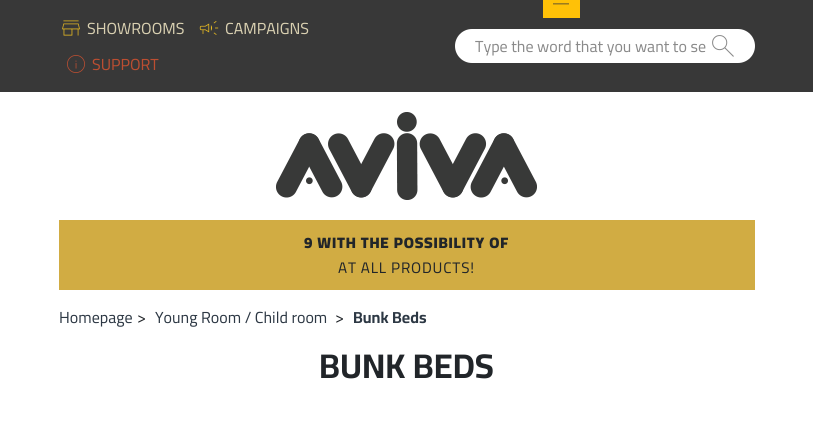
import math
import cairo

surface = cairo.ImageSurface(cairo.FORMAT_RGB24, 813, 441)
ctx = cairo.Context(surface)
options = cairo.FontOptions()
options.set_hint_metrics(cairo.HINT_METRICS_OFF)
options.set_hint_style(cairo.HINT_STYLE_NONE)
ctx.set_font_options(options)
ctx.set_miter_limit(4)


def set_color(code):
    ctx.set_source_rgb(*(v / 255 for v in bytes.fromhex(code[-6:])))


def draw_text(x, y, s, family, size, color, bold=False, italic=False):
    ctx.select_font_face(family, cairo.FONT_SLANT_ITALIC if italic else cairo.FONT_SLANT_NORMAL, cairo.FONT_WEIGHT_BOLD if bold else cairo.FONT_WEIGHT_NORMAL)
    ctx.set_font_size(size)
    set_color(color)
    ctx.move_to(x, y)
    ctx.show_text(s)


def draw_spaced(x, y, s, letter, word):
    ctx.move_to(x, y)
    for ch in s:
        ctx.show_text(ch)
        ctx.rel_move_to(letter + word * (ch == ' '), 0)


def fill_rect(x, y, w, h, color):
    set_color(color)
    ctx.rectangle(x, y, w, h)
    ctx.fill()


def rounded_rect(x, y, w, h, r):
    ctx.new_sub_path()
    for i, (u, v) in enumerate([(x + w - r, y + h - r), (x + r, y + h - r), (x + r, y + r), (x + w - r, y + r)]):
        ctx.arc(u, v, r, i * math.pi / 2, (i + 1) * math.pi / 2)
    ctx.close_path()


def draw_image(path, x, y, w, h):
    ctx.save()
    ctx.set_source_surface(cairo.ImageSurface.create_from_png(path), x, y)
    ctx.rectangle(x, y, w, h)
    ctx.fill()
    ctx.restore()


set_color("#ffffff")
ctx.paint()
fill_rect(0, 0, 813, 92, "#383838")
fill_rect(543, 0, 37, 18, "#ffc107")
draw_image("assets/img1.png", 553, 3, 16, 2)
draw_image("assets/img2.png", 276, 112, 261, 88)
draw_image("assets/img3.png", 62, 20, 18, 16)
draw_text(87, 34, "SHOWROOMS", "Cairo", 16, "#d9d0b1")
draw_image("assets/img4.png", 199, 21, 20, 14)
draw_text(225, 34, "CAMPAIGNS", "Cairo", 16, "#d9d0b1")
draw_image("assets/img5.png", 67, 55, 18, 18)
draw_text(92, 70, "SUPPORT", "Cairo", 16, "#bc4e31")
set_color("#ffffff")
rounded_rect(455, 29, 300, 34, 17)
ctx.fill()
draw_text(475, 52, "Type the word that you want to se", "Cairo", 16, "#8a8a8a")
draw_image("assets/img6.png", 712, 35, 22, 22)
fill_rect(59, 220, 696, 70, "#d1ac43")
ctx.select_font_face("Cairo Black")
ctx.set_font_size(15.25)
set_color("#212529")
draw_spaced(304, 248, "9 WITH THE POSSIBILITY OF", 0.8, 0)
ctx.select_font_face("Cairo")
draw_spaced(338, 273, "AT ALL PRODUCTS!", 0.8, 0)
draw_text(59, 323, "Homepage", "Cairo", 16, "#2d3844")
draw_text(137, 323, ">", "Cairo", 16, "#212529")
draw_text(155, 323, "Young Room / Child room", "Cairo", 16, "#2d3844")
draw_text(335, 323, ">", "Cairo", 16, "#212529")
draw_text(353, 323, "Bunk Beds", "Cairo", 16, "#2d3844", bold=True)
draw_text(319, 378, "BUNK BEDS", "Cairo", 34.25, "#212529", bold=True)
surface.write_to_png("output.png")
